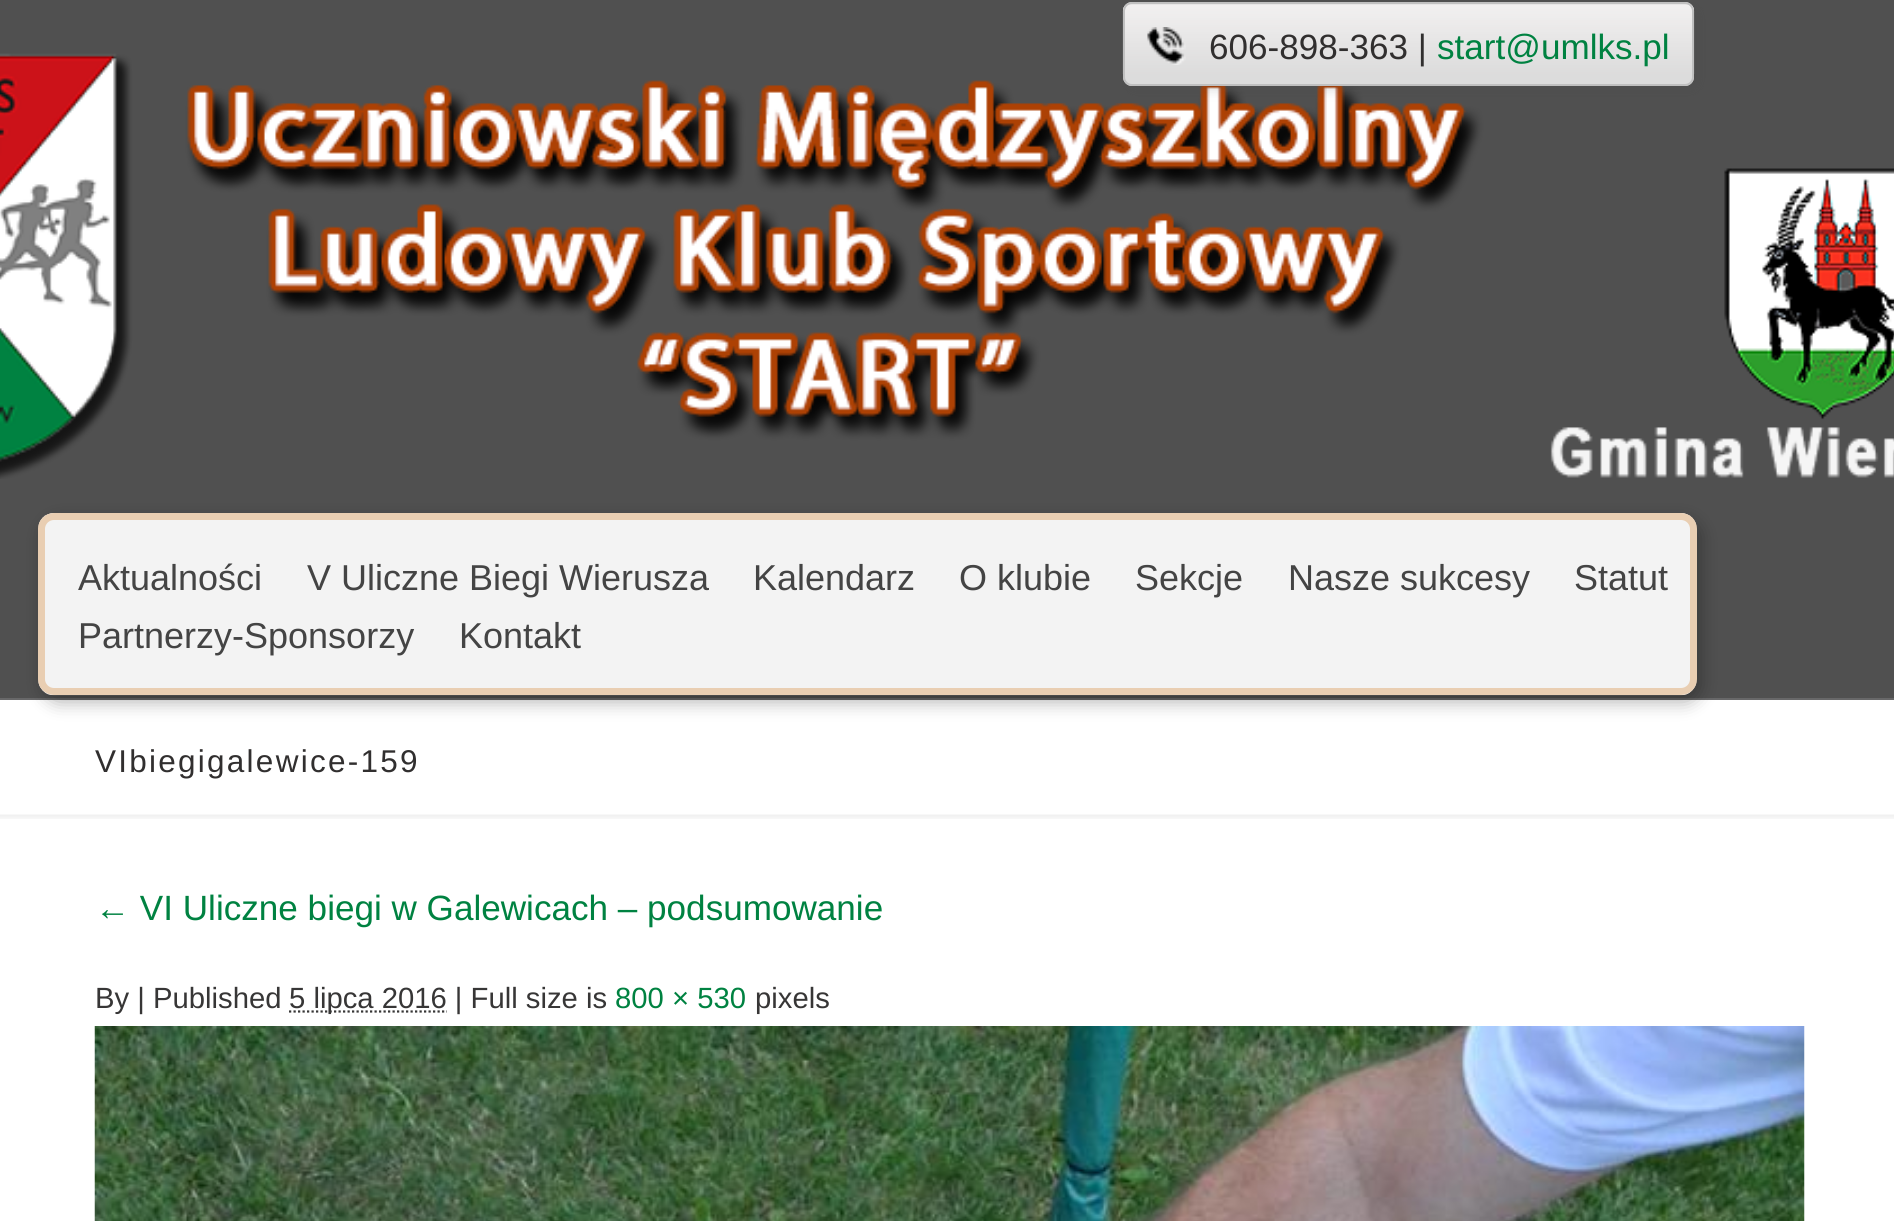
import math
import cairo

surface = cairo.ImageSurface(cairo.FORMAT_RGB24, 1894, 1221)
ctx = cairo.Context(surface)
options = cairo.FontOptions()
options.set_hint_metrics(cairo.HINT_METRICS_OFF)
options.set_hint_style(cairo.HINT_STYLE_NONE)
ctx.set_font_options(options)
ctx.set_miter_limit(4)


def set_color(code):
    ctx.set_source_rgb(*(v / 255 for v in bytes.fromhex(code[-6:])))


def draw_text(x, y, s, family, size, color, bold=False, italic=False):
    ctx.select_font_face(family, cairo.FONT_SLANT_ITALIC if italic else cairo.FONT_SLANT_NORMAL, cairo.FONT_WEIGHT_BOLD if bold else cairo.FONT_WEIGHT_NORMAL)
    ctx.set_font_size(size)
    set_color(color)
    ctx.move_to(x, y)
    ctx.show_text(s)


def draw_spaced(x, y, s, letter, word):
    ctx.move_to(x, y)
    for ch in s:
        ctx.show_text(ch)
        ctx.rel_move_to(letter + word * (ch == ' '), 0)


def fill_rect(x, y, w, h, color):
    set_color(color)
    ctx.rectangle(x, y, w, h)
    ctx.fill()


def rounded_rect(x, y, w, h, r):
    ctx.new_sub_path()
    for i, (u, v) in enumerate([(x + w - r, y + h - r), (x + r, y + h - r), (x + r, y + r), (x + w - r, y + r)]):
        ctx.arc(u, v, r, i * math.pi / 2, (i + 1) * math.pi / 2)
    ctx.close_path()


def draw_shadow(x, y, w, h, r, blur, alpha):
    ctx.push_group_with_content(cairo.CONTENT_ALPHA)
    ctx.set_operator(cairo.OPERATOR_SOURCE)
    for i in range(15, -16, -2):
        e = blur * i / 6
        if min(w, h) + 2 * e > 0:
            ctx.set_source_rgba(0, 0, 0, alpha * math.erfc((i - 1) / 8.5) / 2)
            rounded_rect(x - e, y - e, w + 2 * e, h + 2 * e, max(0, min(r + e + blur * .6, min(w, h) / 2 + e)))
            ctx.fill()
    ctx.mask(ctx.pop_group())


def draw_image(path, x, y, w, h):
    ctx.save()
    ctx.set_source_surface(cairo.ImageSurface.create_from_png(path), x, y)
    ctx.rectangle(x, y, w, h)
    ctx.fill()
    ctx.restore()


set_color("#ffffff")
ctx.paint()
fill_rect(0, 0, 1894, 698, "#505050")
draw_image("assets/img1.png", 0, 53, 1894, 426)
fill_rect(0, 698, 1894, 2, "#686869")
set_color("#474747")
draw_shadow(1127, 7, 572, 83, 9, 5.5, 0.2)
set_color("#dcdcdc")
rounded_rect(1123, 2, 571, 84, 9)
ctx.fill()
draw_image("assets/img2.png", 1122, 4, 573, 70)
rounded_rect(1124, 3, 569, 82, 8)
set_color("#c0c0c0")
ctx.stroke()
draw_image("assets/img3.png", 1147, 27, 39, 38)
draw_text(1209, 59, "606-898-363 |", "Liberation Sans", 35.1, "#312f2f")
draw_text(1437, 59, "start@umlks.pl", "Liberation Sans", 35.1, "#008241")
ctx.save()
ctx.set_fill_rule(cairo.FILL_RULE_EVEN_ODD)
ctx.new_path()
ctx.move_to(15, 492)
ctx.line_to(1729, 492)
ctx.line_to(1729, 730)
ctx.line_to(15, 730)
ctx.close_path()
ctx.move_to(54, 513)
ctx.line_to(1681, 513)
ctx.curve_to(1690, 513, 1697, 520, 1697, 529)
ctx.line_to(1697, 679)
ctx.curve_to(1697, 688, 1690, 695, 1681, 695)
ctx.line_to(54, 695)
ctx.curve_to(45, 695, 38, 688, 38, 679)
ctx.line_to(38, 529)
ctx.curve_to(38, 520, 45, 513, 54, 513)
ctx.close_path()
ctx.clip()
set_color("#000000")
draw_shadow(43, 520, 1658, 182, 16, 9, 0.3)
ctx.restore()
draw_image("assets/img4.png", 38, 513, 1659, 183)
rounded_rect(41.5, 516.5, 1652, 175, 12.5)
set_color("#e9ceb2")
ctx.set_line_width(7)
ctx.stroke()
draw_text(78, 590, "Aktualności", "Liberation Sans", 36, "#444444")
draw_text(307, 590, "V Uliczne Biegi Wierusza", "Liberation Sans", 36, "#444444")
draw_text(753, 590, "Kalendarz", "Liberation Sans", 36, "#444444")
draw_text(959, 590, "O klubie", "Liberation Sans", 36, "#444444")
draw_text(1135, 590, "Sekcje", "Liberation Sans", 36, "#444444")
draw_text(1288, 590, "Nasze sukcesy", "Liberation Sans", 36, "#444444")
draw_text(1574, 590, "Statut", "Liberation Sans", 36, "#444444")
draw_text(78, 648, "Partnerzy-Sponsorzy", "Liberation Sans", 36, "#444444")
draw_text(459, 648, "Kontakt", "Liberation Sans", 36, "#444444")
draw_image("assets/img5.png", 0, 814, 1894, 5)
ctx.set_font_size(31.5)
set_color("#312f2f")
draw_spaced(95, 772, "VIbiegigalewice-159", 2.25, 0)
draw_text(95, 920, "← VI Uliczne biegi w Galewicach – podsumowanie", "Liberation Sans", 35.1, "#008241")
draw_text(95, 1008, "By | Published", "Liberation Sans", 29.25, "#373636")
ctx.new_path()
ctx.move_to(289, 1011.5)
ctx.line_to(447, 1011.5)
ctx.set_line_width(2.2)
ctx.set_dash([2.25, 2.25])
ctx.stroke()
draw_text(289, 1008, "5 lipca 2016 | Full size is", "Liberation Sans", 29.25, "#373636")
draw_text(615, 1008, "800 × 530", "Liberation Sans", 29.25, "#008241")
draw_text(755, 1008, "pixels", "Liberation Sans", 29.25, "#373636")
draw_image("assets/img6.png", 94, 1026, 1711, 195)
surface.write_to_png("output.png")
